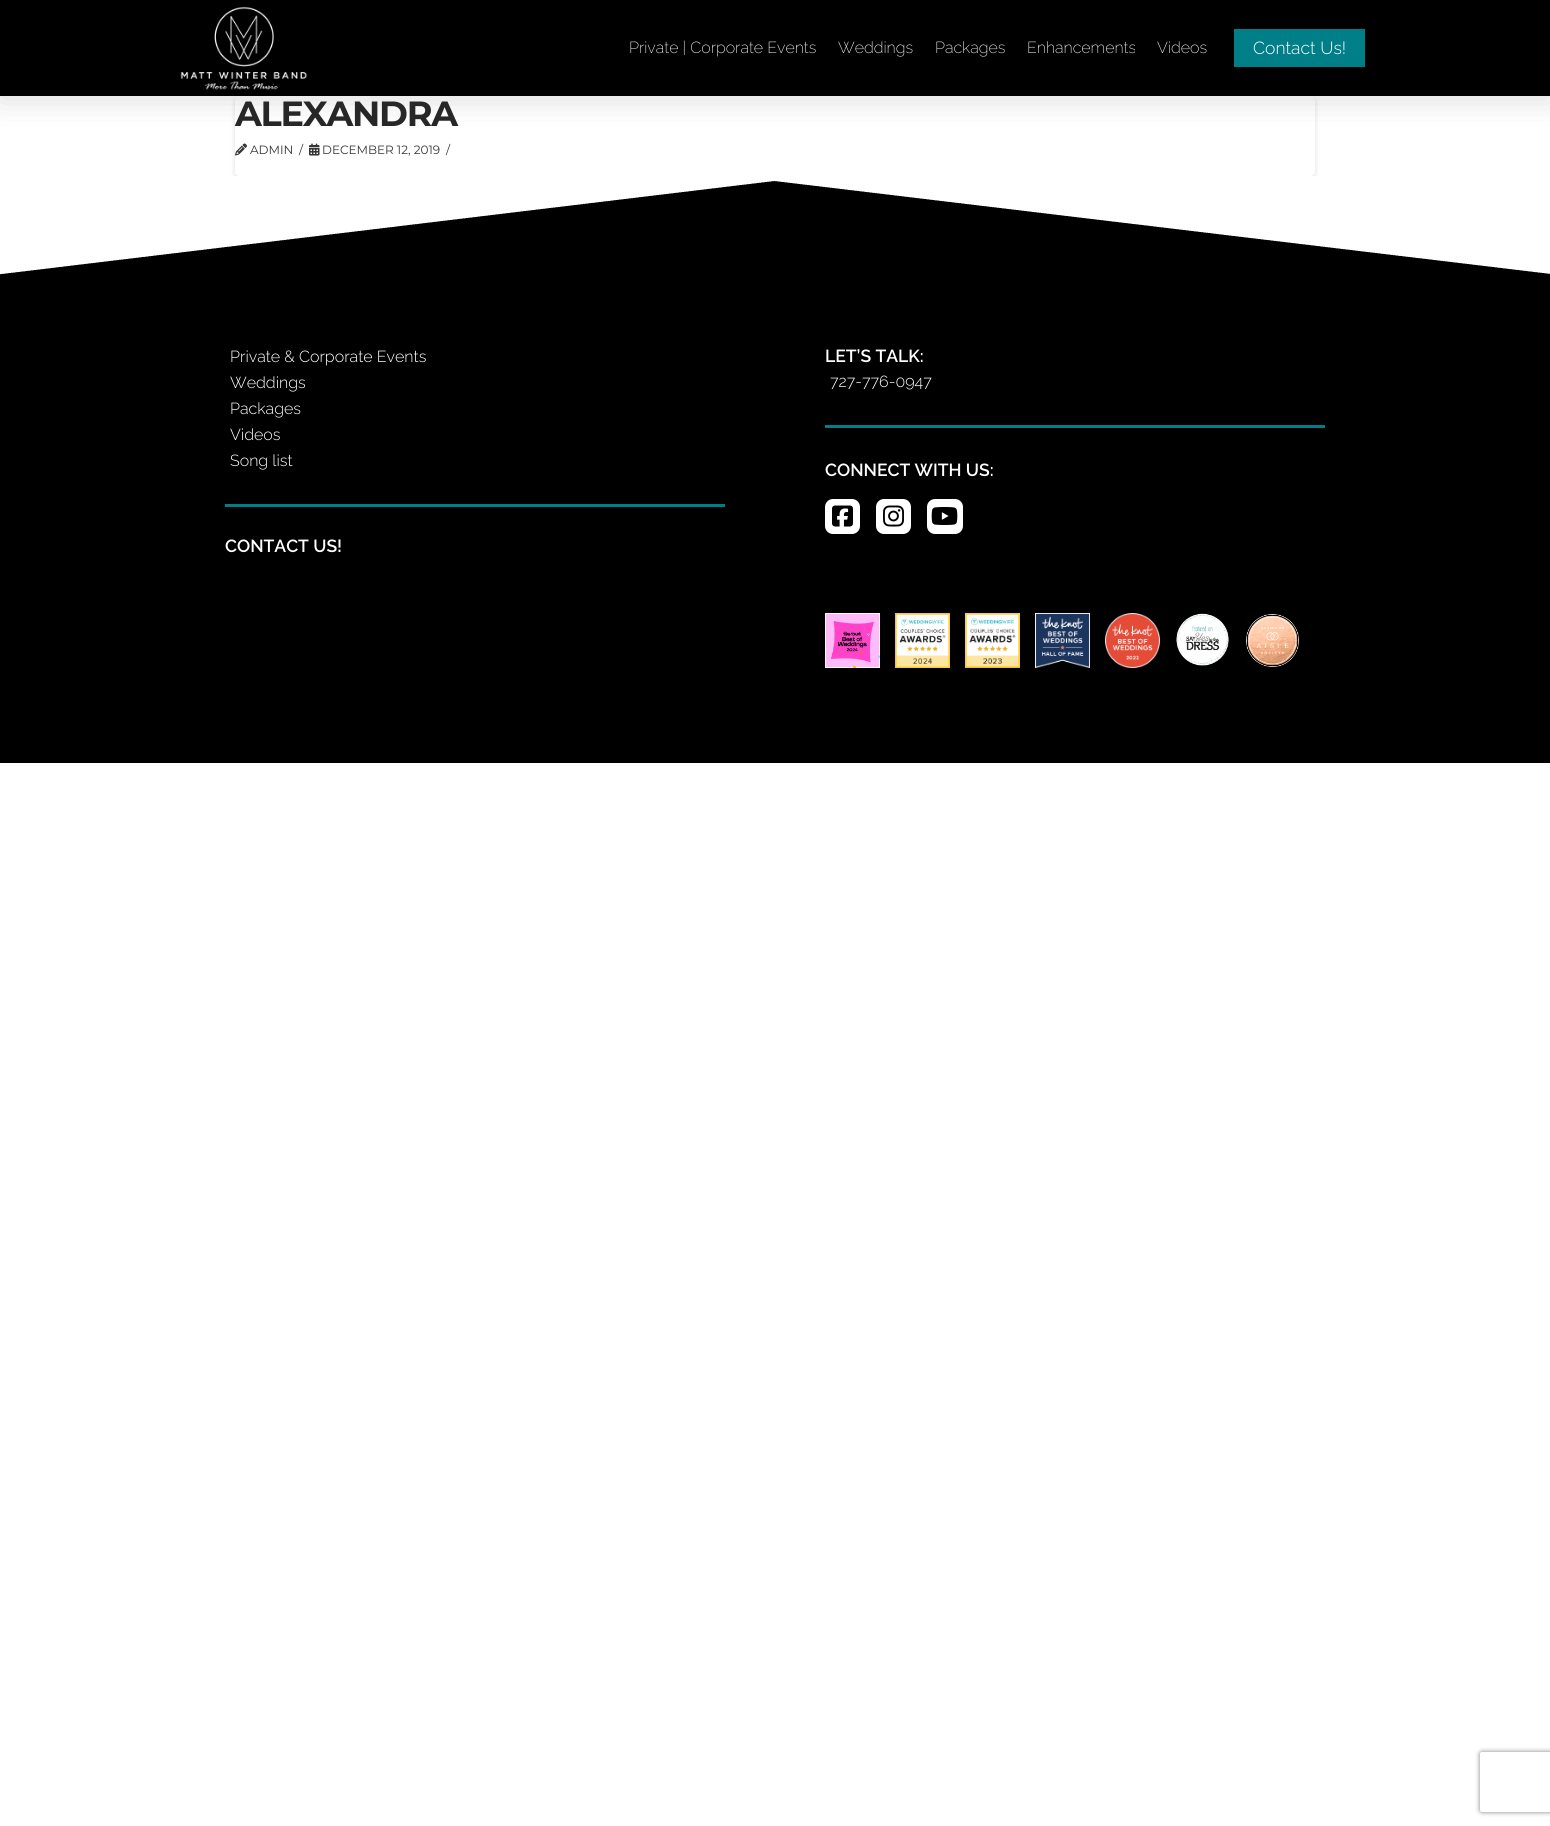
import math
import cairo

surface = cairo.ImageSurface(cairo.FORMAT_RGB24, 1550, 1826)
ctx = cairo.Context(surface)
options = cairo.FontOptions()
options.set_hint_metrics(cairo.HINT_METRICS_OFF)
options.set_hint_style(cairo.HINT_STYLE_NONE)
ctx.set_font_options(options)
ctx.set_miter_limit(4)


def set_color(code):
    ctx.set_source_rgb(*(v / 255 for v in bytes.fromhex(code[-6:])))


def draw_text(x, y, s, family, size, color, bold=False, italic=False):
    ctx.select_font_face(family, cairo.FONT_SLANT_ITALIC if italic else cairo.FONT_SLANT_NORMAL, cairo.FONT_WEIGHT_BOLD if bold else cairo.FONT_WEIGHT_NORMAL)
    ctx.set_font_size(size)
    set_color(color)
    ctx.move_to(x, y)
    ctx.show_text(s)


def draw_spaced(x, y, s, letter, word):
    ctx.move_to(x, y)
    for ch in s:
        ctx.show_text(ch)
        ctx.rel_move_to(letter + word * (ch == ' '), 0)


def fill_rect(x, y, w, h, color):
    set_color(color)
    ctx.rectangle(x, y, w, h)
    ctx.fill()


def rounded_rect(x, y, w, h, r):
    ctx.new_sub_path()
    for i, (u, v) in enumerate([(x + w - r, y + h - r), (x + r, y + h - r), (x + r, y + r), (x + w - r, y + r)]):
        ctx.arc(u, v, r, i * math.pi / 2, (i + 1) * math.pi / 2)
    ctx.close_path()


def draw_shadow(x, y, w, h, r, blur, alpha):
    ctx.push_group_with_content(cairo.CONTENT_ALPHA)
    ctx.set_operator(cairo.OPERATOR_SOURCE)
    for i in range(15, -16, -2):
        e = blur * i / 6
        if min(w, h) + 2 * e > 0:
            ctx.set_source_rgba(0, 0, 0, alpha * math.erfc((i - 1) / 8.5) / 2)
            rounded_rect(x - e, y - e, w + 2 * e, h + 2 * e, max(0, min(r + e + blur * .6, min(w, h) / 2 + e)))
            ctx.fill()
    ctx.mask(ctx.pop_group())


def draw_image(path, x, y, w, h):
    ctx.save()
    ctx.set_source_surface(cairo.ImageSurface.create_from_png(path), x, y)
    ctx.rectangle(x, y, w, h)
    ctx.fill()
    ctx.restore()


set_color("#ffffff")
ctx.paint()
set_color("#000000")
draw_shadow(235, 98, 1080, 80, 4, 2.5, 0.13)
set_color("#ffffff")
rounded_rect(235, 96, 1080, 80, 4)
ctx.fill()
draw_image("assets/img2.png", 235, 143, 12, 13)
draw_image("assets/img3.png", 309, 143, 11, 13)
set_color("#000000")
draw_shadow(0, 2, 1550, 96, 0, 16, 0.15)
fill_rect(0, 0, 1550, 96, "#000000")
draw_image("assets/img1.png", 180, 6, 128, 84)
draw_text(629, 53, "Private | Corporate Events", "Raleway ExtraLight", 16, "#ffffff")
draw_text(838, 53, "Weddings", "Raleway ExtraLight", 16, "#ffffff")
draw_text(935, 53, "Packages", "Raleway ExtraLight", 16, "#ffffff")
draw_text(1027, 53, "Enhancements", "Raleway ExtraLight", 16, "#ffffff")
draw_text(1157, 53, "Videos", "Raleway ExtraLight", 16, "#ffffff")
fill_rect(1234, 29, 131, 38, "#007f89")
draw_text(1253, 54, "Contact Us!", "Raleway Light", 17.5, "#ffffff")
ctx.select_font_face("Montserrat", cairo.FONT_SLANT_NORMAL, cairo.FONT_WEIGHT_BOLD)
ctx.set_font_size(35)
set_color("#272727")
draw_spaced(235, 126, "ALEXANDRA", -1.25, 0)
draw_text(250, 154, "ADMIN", "Montserrat", 12, "#353535")
draw_text(299, 154, "/", "Montserrat", 12, "#353535")
draw_text(322, 154, "DECEMBER 12, 2019", "Montserrat", 12, "#353535")
draw_text(446, 154, "/", "Montserrat", 12, "#353535")
fill_rect(232, 176, 1086, 6, "#ffffff")
draw_image("assets/img4.png", 0, 181, 1550, 115)
fill_rect(0, 296, 1550, 467, "#000000")
draw_text(230, 362, "Private & Corporate Events", "Raleway Light", 16, "#ffffff")
draw_text(230, 388, "Weddings", "Raleway Light", 16, "#ffffff")
draw_text(230, 414, "Packages", "Raleway Light", 16, "#ffffff")
draw_text(230, 440, "Videos", "Raleway Light", 16, "#ffffff")
draw_text(230, 466, "Song list", "Raleway Light", 16, "#ffffff")
fill_rect(225, 504, 500, 3, "#007f89")
draw_text(225, 552, "CONTACT US!", "Raleway SemiBold", 17.5, "#ffffff")
draw_text(825, 362, "LET’S TALK:", "Raleway SemiBold", 17.5, "#ffffff")
draw_text(830, 387, "727-776-0947", "Raleway Light", 16, "#ffffff")
fill_rect(825, 425, 500, 3, "#007f89")
draw_text(825, 476, "CONNECT WITH US:", "Raleway SemiBold", 17.5, "#ffffff")
rounded_rect(825, 499, 35, 35, 8)
ctx.fill()
draw_image("assets/img5.png", 832, 505, 21, 22)
rounded_rect(876, 499, 35, 35, 8)
ctx.fill()
draw_image("assets/img6.png", 883, 505, 21, 22)
rounded_rect(927, 499, 36, 35, 8)
ctx.fill()
draw_image("assets/img7.png", 931, 507, 27, 18)
draw_image("assets/img8.png", 825, 613, 55, 55)
draw_image("assets/img9.png", 895, 613, 55, 55)
draw_image("assets/img10.png", 965, 613, 55, 55)
draw_image("assets/img11.png", 1035, 613, 55, 55)
draw_image("assets/img12.png", 1105, 613, 55, 55)
draw_image("assets/img13.png", 1176, 613, 53, 53)
draw_image("assets/img14.png", 1246, 614, 53, 53)
ctx.save()
ctx.set_fill_rule(cairo.FILL_RULE_EVEN_ODD)
ctx.new_path()
ctx.move_to(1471, 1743)
ctx.line_to(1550, 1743)
ctx.line_to(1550, 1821)
ctx.line_to(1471, 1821)
ctx.close_path()
ctx.move_to(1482, 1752)
ctx.line_to(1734, 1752)
ctx.curve_to(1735, 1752, 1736, 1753, 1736, 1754)
ctx.line_to(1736, 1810)
ctx.curve_to(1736, 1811, 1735, 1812, 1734, 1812)
ctx.line_to(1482, 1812)
ctx.curve_to(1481, 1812, 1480, 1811, 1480, 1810)
ctx.line_to(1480, 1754)
ctx.curve_to(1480, 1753, 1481, 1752, 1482, 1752)
ctx.close_path()
ctx.clip()
set_color("#808080")
draw_shadow(1480, 1752, 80, 60, 2, 2.5, 1)
ctx.restore()
surface.write_to_png("output.png")
